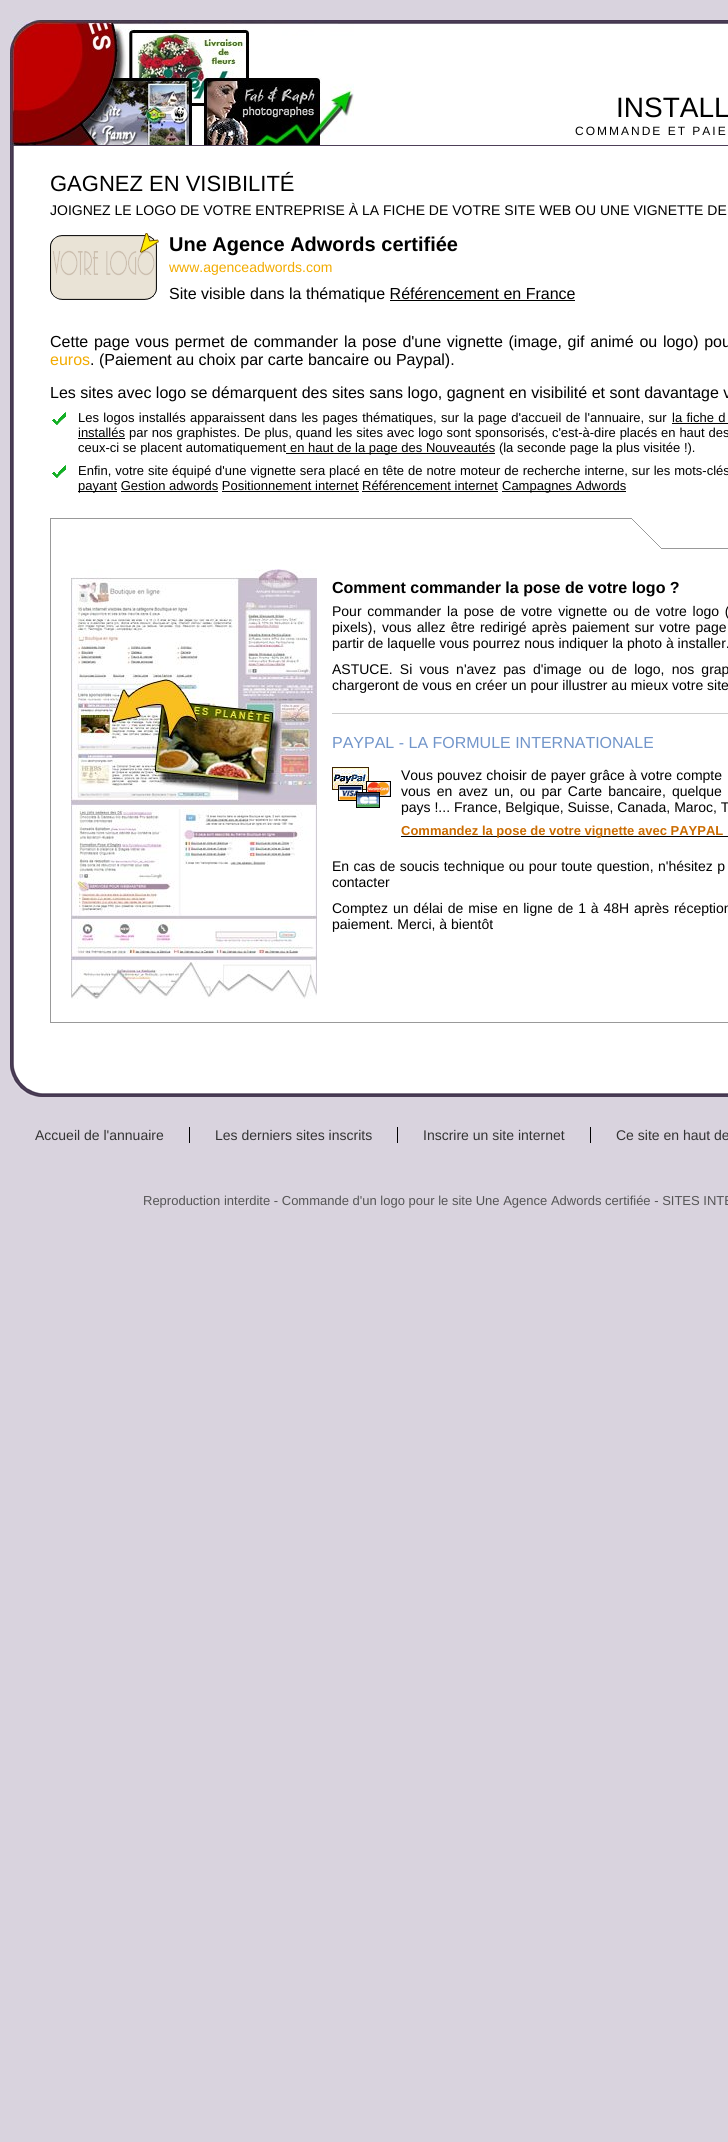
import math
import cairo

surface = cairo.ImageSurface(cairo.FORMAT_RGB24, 728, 2142)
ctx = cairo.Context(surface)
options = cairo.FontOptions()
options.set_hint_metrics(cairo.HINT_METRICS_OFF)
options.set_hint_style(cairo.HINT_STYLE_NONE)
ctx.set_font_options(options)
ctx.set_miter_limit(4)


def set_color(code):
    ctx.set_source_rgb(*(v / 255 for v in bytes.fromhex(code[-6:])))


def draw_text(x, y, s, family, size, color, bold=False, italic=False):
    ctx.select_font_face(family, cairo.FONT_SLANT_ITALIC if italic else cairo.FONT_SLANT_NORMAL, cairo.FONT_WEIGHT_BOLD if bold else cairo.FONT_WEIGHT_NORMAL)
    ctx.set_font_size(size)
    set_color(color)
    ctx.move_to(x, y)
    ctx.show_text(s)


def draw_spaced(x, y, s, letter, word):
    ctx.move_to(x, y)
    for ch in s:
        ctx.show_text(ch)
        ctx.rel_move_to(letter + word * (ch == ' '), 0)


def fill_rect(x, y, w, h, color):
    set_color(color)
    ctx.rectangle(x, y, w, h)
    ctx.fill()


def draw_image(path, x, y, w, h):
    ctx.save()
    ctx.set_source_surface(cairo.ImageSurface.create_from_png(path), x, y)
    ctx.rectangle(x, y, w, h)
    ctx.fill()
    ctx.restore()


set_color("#d9d3de")
ctx.paint()
fill_rect(354, 24, 374, 121, "#ffffff")
draw_image("assets/img1.png", 10, 20, 344, 125)
draw_image("assets/img2.png", 354, 20, 374, 4)
draw_text(616, 117, "INSTALL", "Liberation Sans", 28, "#000000")
ctx.set_font_size(12)
draw_spaced(575, 135, "COMMANDE ET PAIE", 2, 0)
fill_rect(10, 145, 718, 1, "#4d3f58")
fill_rect(14, 146, 714, 917, "#ffffff")
draw_image("assets/img3.png", 10, 146, 4, 917)
draw_text(50, 191, "GAGNEZ EN VISIBILITÉ", "Liberation Sans", 22, "#000000")
draw_text(50, 215, "JOIGNEZ LE LOGO DE VOTRE ENTREPRISE À LA FICHE DE VOTRE SITE WEB OU UNE VIGNETTE DE", "Liberation Sans", 14, "#000000")
draw_image("assets/img4.png", 50, 233, 109, 67)
draw_text(169, 251, "Une Agence Adwords certifiée", "Liberation Sans", 20, "#000000", bold=True)
draw_text(169, 272, "www.agenceadwords.com", "Liberation Sans", 14, "#f2ab00")
draw_text(169, 299, "Site visible dans la thématique Référencement en France", "Liberation Sans", 16, "#000000")
fill_rect(390, 300, 185, 1, "#000000")
draw_spaced(50, 347, "Cette page vous permet de commander la pose d'une vignette (image, gif animé ou logo) pou", 0, 1.25)
draw_text(50, 365, "euros", "Liberation Sans", 16, "#f2ab00")
draw_text(90, 365, ". (Paiement au choix par carte bancaire ou Paypal).", "Liberation Sans", 16, "#000000")
draw_text(50, 398, "Les sites avec logo se démarquent des sites sans logo, gagnent en visibilité et sont davantage v", "Liberation Sans", 16, "#000000")
draw_image("assets/img5.png", 52, 412, 14, 13)
ctx.set_font_size(13)
draw_spaced(78, 422, "Les logos installés apparaissent dans les pages thématiques, sur la page d'accueil de l'annuaire, sur", 0, 0.75)
draw_spaced(672, 422, "la fiche d", 0, 0.75)
fill_rect(672, 423, 56, 1, "#000000")
draw_text(78, 437, "installés", "Liberation Sans", 13, "#000000")
fill_rect(78, 438, 47, 1, "#000000")
draw_spaced(129, 437, "par nos graphistes. De plus, quand les sites avec logo sont sponsorisés, c'est-à-dire placés en haut des", 0, 0.25)
draw_text(78, 452, "ceux-ci se placent automatiquement", "Liberation Sans", 13, "#000000")
fill_rect(286, 453, 209, 1, "#000000")
draw_text(290, 452, "en haut de la page des Nouveautés (la seconde page la plus visitée !).", "Liberation Sans", 13, "#000000")
draw_image("assets/img5.png", 52, 465, 14, 13)
draw_spaced(78, 475, "Enfin, votre site équipé d'une vignette sera placé en tête de notre moteur de recherche interne, sur les mots-clés", 0, 0.3)
fill_rect(78, 491, 39, 1, "#000000")
draw_text(78, 490, "payant Gestion adwords Positionnement internet Référencement internet", "Liberation Sans", 13, "#000000")
fill_rect(502, 491, 124, 1, "#000000")
draw_text(502, 490, "Campagnes Adwords", "Liberation Sans", 13, "#000000")
fill_rect(121, 491, 97, 1, "#000000")
fill_rect(222, 491, 137, 1, "#000000")
fill_rect(362, 491, 136, 1, "#000000")
fill_rect(50, 518, 581, 1, "#999999")
fill_rect(50, 518, 1, 31, "#999999")
draw_image("assets/img6.png", 631, 518, 30, 30)
fill_rect(661, 548, 67, 1, "#999999")
fill_rect(50, 1022, 678, 1, "#999999")
fill_rect(50, 549, 1, 474, "#999999")
draw_image("assets/img7.png", 71, 569, 246, 430)
draw_text(332, 593, "Comment commander la pose de votre logo ?", "Liberation Sans", 16, "#000000", bold=True)
ctx.select_font_face("Liberation Sans")
ctx.set_font_size(14)
draw_spaced(332, 616, "Pour commander la pose de votre vignette ou de votre logo (", 0, 1.9)
draw_text(332, 632, "pixels),", "Liberation Sans", 14, "#000000")
draw_spaced(382, 632, "vous allez être redirigé après paiement sur votre page", 0, 1.25)
draw_text(332, 648, "partir de laquelle vous pourrez nous indiquer la photo à installer.", "Liberation Sans", 14, "#000000")
draw_spaced(332, 674, "ASTUCE. Si vous n'avez pas d'image ou de logo, nos grap", 0, 3.25)
draw_text(332, 690, "chargeront de vous en créer un pour illustrer au mieux votre site", "Liberation Sans", 14, "#000000")
fill_rect(332, 713, 396, 1, "#cccccc")
draw_text(332, 748, "PAYPAL - LA FORMULE INTERNATIONALE", "Liberation Sans", 16, "#7195ca")
draw_image("assets/img8.png", 332, 767, 59, 41)
ctx.set_font_size(14)
set_color("#000000")
draw_spaced(401, 780, "Vous pouvez choisir de payer grâce à votre compte", 0, 0.25)
draw_spaced(401, 796, "vous en avez un, ou par Carte bancaire, quelque", 0, 2.25)
draw_text(401, 812, "pays !... France, Belgique, Suisse, Canada, Maroc, T", "Liberation Sans", 14, "#000000")
fill_rect(401, 836, 327, 1, "#000000")
draw_text(401, 835, "Commandez la pose de votre vignette avec PAYPAL", "Liberation Sans", 13, "#cb6b00", bold=True)
ctx.select_font_face("Liberation Sans")
ctx.set_font_size(14)
set_color("#000000")
draw_spaced(332, 871, "En cas de soucis technique ou pour toute question, n'hésitez p", 0, 0.5)
draw_text(332, 887, "contacter", "Liberation Sans", 14, "#000000")
draw_spaced(332, 913, "Comptez un délai de mise en ligne de 1 à 48H après réception", 0, 1)
draw_text(332, 929, "paiement. Merci, à bientôt", "Liberation Sans", 14, "#000000")
draw_image("assets/img9.png", 10, 1063, 32, 34)
draw_image("assets/img10.png", 42, 1063, 686, 34)
fill_rect(189, 1127, 1, 16, "#000000")
draw_text(35, 1140, "Accueil de l'annuaire", "Liberation Sans", 14, "#333333")
fill_rect(397, 1127, 1, 16, "#000000")
draw_text(215, 1140, "Les derniers sites inscrits", "Liberation Sans", 14, "#333333")
fill_rect(590, 1127, 1, 16, "#000000")
draw_text(423, 1140, "Inscrire un site internet", "Liberation Sans", 14, "#333333")
draw_text(616, 1140, "Ce site en haut de", "Liberation Sans", 14, "#333333")
draw_text(143, 1205, "Reproduction interdite - Commande d'un logo pour le site Une Agence Adwords certifiée - SITES INTE", "Liberation Sans", 13, "#555555")
surface.write_to_png("output.png")
